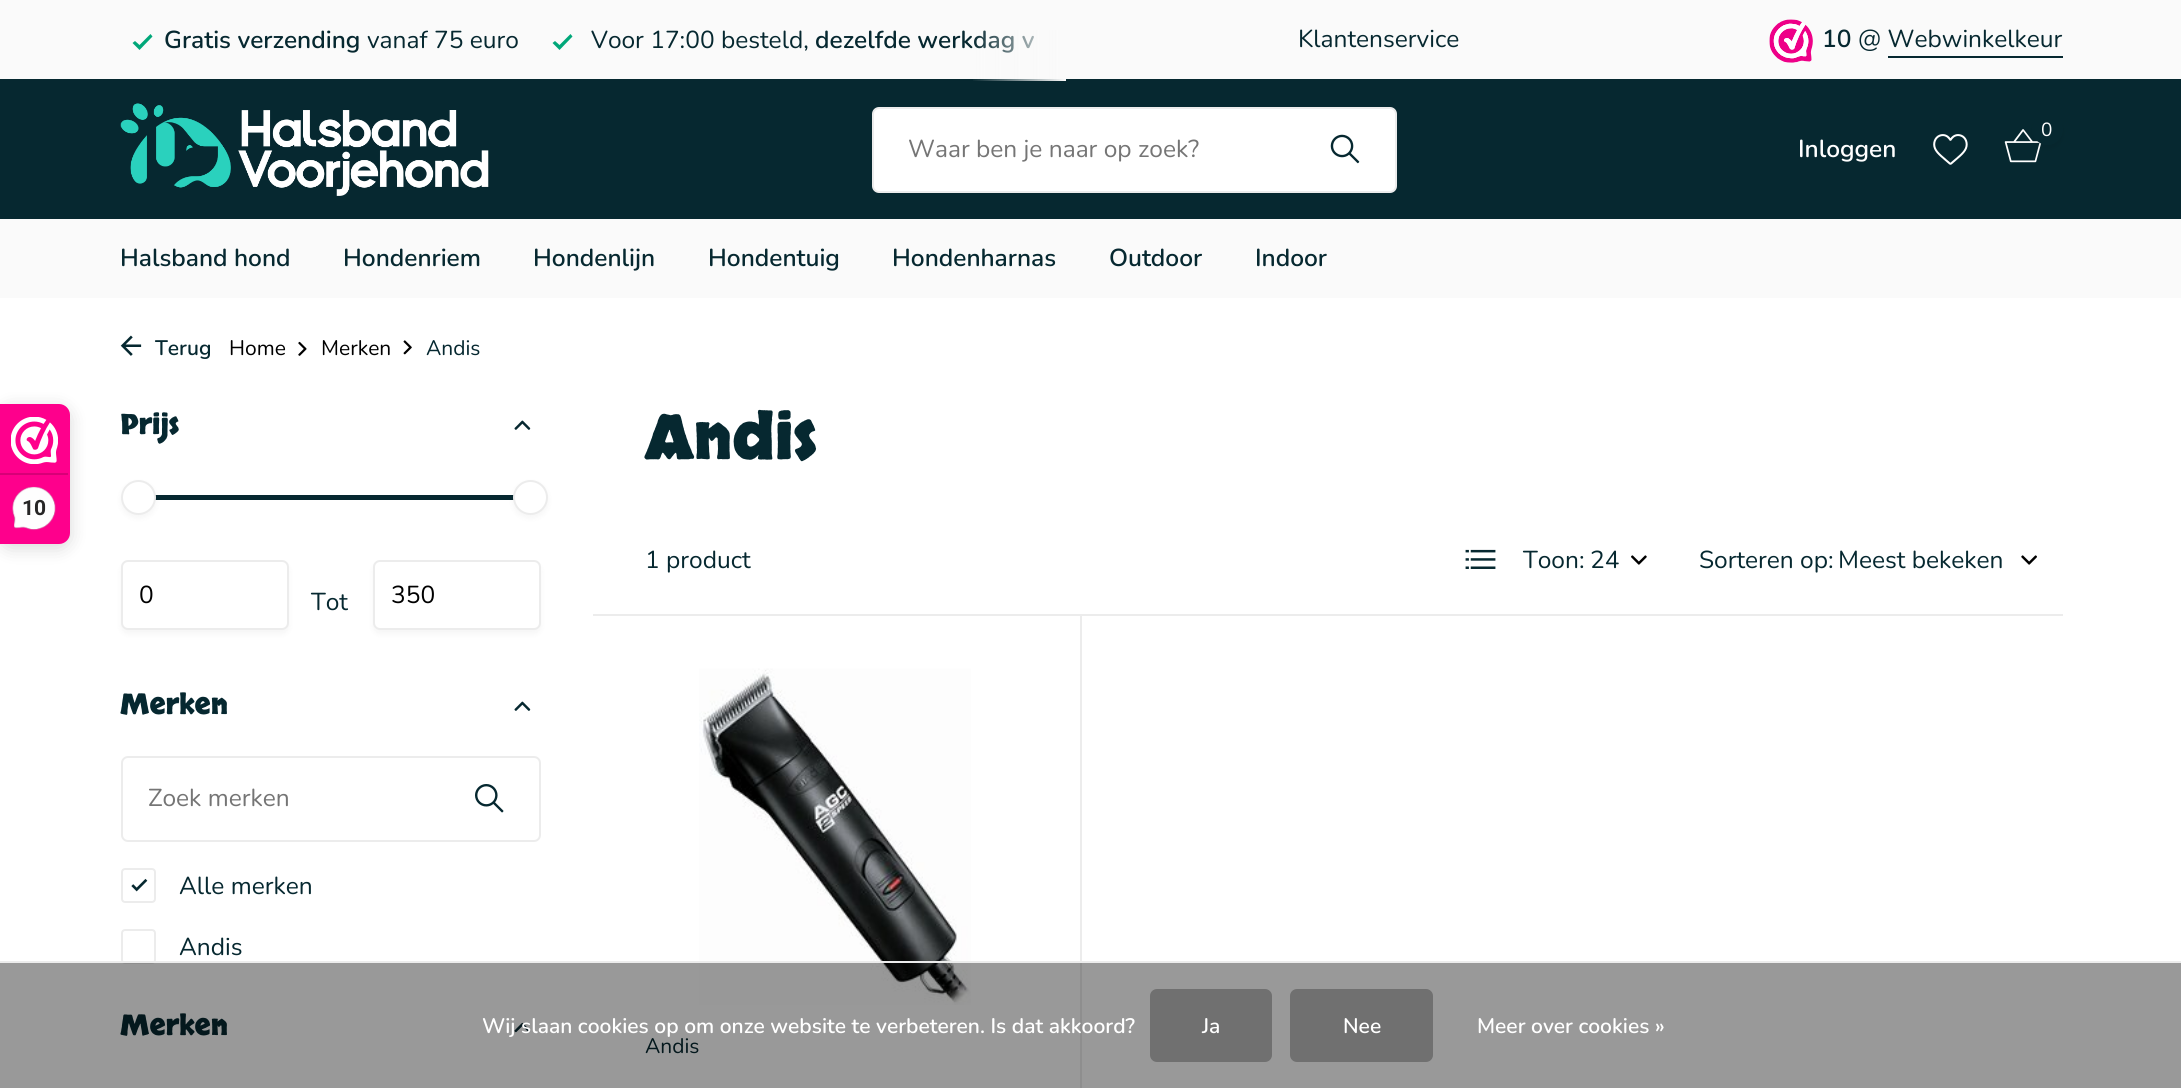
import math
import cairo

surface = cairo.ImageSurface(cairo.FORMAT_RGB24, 2181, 1088)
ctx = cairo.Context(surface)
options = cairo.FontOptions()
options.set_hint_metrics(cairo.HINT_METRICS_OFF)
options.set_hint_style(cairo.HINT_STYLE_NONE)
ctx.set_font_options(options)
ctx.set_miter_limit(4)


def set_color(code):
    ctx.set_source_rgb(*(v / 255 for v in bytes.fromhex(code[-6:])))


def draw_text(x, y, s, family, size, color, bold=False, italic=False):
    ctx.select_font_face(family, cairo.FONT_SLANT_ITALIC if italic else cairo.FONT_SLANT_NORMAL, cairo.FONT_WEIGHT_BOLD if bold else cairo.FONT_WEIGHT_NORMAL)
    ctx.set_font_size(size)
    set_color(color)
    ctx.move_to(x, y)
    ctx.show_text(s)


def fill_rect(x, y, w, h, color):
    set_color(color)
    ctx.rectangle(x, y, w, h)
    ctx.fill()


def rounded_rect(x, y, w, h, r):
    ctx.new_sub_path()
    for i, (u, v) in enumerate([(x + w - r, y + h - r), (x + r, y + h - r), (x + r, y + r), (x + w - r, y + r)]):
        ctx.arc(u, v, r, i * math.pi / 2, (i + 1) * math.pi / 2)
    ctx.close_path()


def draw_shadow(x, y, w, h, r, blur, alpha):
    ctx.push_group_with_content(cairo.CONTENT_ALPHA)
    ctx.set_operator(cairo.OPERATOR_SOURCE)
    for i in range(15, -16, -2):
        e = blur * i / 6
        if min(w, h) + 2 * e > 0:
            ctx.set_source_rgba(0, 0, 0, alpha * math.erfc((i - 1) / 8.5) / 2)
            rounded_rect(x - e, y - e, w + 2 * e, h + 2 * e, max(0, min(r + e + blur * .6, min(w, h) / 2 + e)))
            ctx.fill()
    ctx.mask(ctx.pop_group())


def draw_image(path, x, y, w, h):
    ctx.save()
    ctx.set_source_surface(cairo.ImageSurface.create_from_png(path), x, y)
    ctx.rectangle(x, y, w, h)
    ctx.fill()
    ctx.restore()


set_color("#ffffff")
ctx.paint()
fill_rect(0, 0, 2181, 79, "#fafafa")
set_color("#00a779")
ctx.new_path()
ctx.move_to(139.5, 45)
ctx.line_to(150.5, 34)
ctx.line_to(152.5, 36.5)
ctx.line_to(139.5, 50)
ctx.line_to(132.5, 43)
ctx.line_to(135, 41)
ctx.close_path()
ctx.fill()
draw_text(164, 48, "Gratis verzending", "Nunito SemiBold", 24.5, "#062830")
draw_text(367, 48, "vanaf 75 euro", "Nunito", 24.5, "#062830")
set_color("#00a779")
ctx.new_path()
ctx.move_to(559.5, 45)
ctx.line_to(570.5, 34)
ctx.line_to(572.5, 36.5)
ctx.line_to(559.5, 50)
ctx.line_to(552.5, 43)
ctx.line_to(555, 41)
ctx.close_path()
ctx.fill()
draw_text(591, 48, "Voor 17:00 besteld,", "Nunito", 24.5, "#062830")
draw_text(815, 48, "dezelfde werkdag v", "Nunito SemiBold", 24.5, "#062830")
fill_rect(0, 79, 2181, 140, "#062830")
gradient = cairo.LinearGradient(1066, 41, 971, 41)
gradient.add_color_stop_rgba(0, 0.98, 0.98, 0.98, 1)
gradient.add_color_stop_rgba(1, 0.98, 0.98, 0.98, 0)
ctx.set_source(gradient)
ctx.rectangle(973, 30, 93, 51)
ctx.fill()
draw_text(1298, 47, "Klantenservice", "Nunito", 24.5, "#062830")
draw_image("assets/img1.png", 1769, 19, 44, 44)
draw_text(1822, 47, "10", "Nunito SemiBold", 24.5, "#062830")
draw_text(1858, 47, "@ Webwinkelkeur", "Nunito", 24.5, "#062830")
fill_rect(1888, 56, 175, 2, "#062830")
draw_image("assets/img2.png", 120, 103, 369, 93)
set_color("#ffffff")
rounded_rect(873, 108, 523, 84, 6)
ctx.fill_preserve()
set_color("#ececec")
ctx.stroke()
draw_text(908, 157, "Waar ben je naar op zoek?", "Nunito", 24.5, "#757575")
draw_image("assets/img3.png", 1330, 134, 30, 30)
draw_image("assets/img4.png", 2004, 129, 38, 34)
set_color("#000000")
draw_shadow(2032, 117, 31, 32, 15.5, 2, 0.06)
set_color("#062830")
ctx.arc(2047.5, 129.5, 15.5, 0, 2 * math.pi)
ctx.fill()
draw_text(2041, 136, "0", "Nunito", 19, "#ffffff")
draw_text(1798, 157, "Inloggen", "Nunito SemiBold", 24.5, "#ffffff")
draw_image("assets/img5.png", 1933, 134, 35, 31)
fill_rect(0, 219, 2181, 79, "#fafafa")
draw_text(120, 266, "Halsband hond", "Nunito SemiBold", 24.5, "#062830")
draw_text(343, 266, "Hondenriem", "Nunito SemiBold", 24.5, "#062830")
draw_text(533, 266, "Hondenlijn", "Nunito SemiBold", 24.5, "#062830")
draw_text(708, 266, "Hondentuig", "Nunito SemiBold", 24.5, "#062830")
draw_text(892, 266, "Hondenharnas", "Nunito SemiBold", 24.5, "#062830")
draw_text(1109, 266, "Outdoor", "Nunito SemiBold", 24.5, "#062830")
draw_text(1255, 266, "Indoor", "Nunito SemiBold", 24.5, "#062830")
draw_image("assets/img6.png", 120, 335, 22, 21)
draw_text(155, 355, "Terug", "Nunito SemiBold", 21, "#062830")
draw_text(229, 355, "Home", "Nunito", 21, "#000000")
draw_image("assets/img7.png", 298, 341, 9, 15)
draw_text(321, 355, "Merken", "Nunito", 21, "#000000")
draw_image("assets/img8.png", 403, 340, 9, 15)
draw_text(426, 355, "Andis", "Nunito", 21, "#062830")
set_color("#000000")
draw_shadow(0, 408, 70, 140, 11, 9, 0.15)
set_color("#fe008c")
ctx.new_path()
ctx.move_to(0, 404)
ctx.line_to(59, 404)
ctx.curve_to(65, 404, 70, 409, 70, 415)
ctx.line_to(70, 533)
ctx.curve_to(70, 539, 65, 544, 59, 544)
ctx.line_to(0, 544)
ctx.close_path()
ctx.fill()
draw_image("assets/img9.png", 11, 417, 47, 47)
fill_rect(0, 473, 68, 2, "#d80077")
draw_image("assets/img10.png", 12, 486, 44, 45)
draw_text(22, 515, "10", "Roboto", 21, "#272626", bold=True)
draw_text(120, 434, "Prijs", "Skranji", 28, "#062830", bold=True)
draw_image("assets/img11.png", 514, 420, 17, 10)
fill_rect(155, 495, 359, 5, "#062830")
set_color("#000000")
draw_shadow(121, 483, 35, 35, 17.5, 3.5, 0.04)
set_color("#ffffff")
ctx.arc(138.5, 497.5, 16.5, 0, 2 * math.pi)
ctx.fill_preserve()
set_color("#ececec")
ctx.stroke()
set_color("#000000")
draw_shadow(513, 483, 35, 35, 17.5, 3.5, 0.04)
set_color("#ffffff")
ctx.arc(530.5, 497.5, 16.5, 0, 2 * math.pi)
ctx.fill_preserve()
set_color("#ececec")
ctx.stroke()
set_color("#000000")
draw_shadow(121, 564, 168, 70, 7, 3.5, 0.04)
set_color("#ffffff")
rounded_rect(122, 561, 166, 68, 6)
ctx.fill_preserve()
set_color("#ececec")
ctx.stroke()
draw_text(139, 603, "0", "Nunito", 24.5, "#000000")
draw_text(311, 610, "Tot", "Nunito", 24.5, "#062830")
set_color("#000000")
draw_shadow(373, 564, 168, 70, 7, 3.5, 0.04)
set_color("#ffffff")
rounded_rect(374, 561, 166, 68, 6)
ctx.fill_preserve()
set_color("#ececec")
ctx.stroke()
draw_text(391, 603, "350", "Nunito", 24.5, "#000000")
draw_text(120, 714, "Merken", "Skranji", 28, "#062830", bold=True)
draw_image("assets/img12.png", 514, 701, 17, 10)
rounded_rect(122, 757, 418, 84, 6)
set_color("#ececec")
ctx.stroke()
draw_text(148, 806, "Zoek merken", "Nunito", 24.5, "#757575")
draw_image("assets/img13.png", 475, 784, 29, 29)
rounded_rect(122, 869, 33, 33, 3)
set_color("#ececec")
ctx.stroke()
draw_text(179, 894, "Alle merken", "Nunito", 24.5, "#062830")
draw_image("assets/img14.png", 131, 878, 17, 14)
rounded_rect(122, 930, 33, 33, 3)
set_color("#ececec")
ctx.stroke()
draw_text(179, 955, "Andis", "Nunito", 24.5, "#062830")
draw_text(120, 1035, "Merken", "Skranji", 28, "#062830", bold=True)
draw_image("assets/img15.png", 514, 1022, 17, 11)
draw_text(645, 459, "Andis", "Skranji", 63, "#062830", bold=True)
draw_text(645, 568, "1 product", "Nunito", 24.5, "#062830")
draw_image("assets/img16.png", 1465, 549, 31, 20)
draw_text(1523, 568, "Toon:", "Nunito", 24.5, "#062830")
draw_text(1590, 568, "24", "Nunito", 24.5, "#062830")
draw_image("assets/img17.png", 1631, 555, 16, 10)
draw_text(1699, 568, "Sorteren op:", "Nunito", 24.5, "#062830")
draw_text(1838, 568, "Meest bekeken", "Nunito", 24.5, "#062830")
draw_image("assets/img18.png", 2021, 555, 16, 10)
fill_rect(593, 614, 1470, 2, "#ececec")
fill_rect(1080, 616, 2, 472, "#ececec")
draw_image("assets/img19.png", 699, 668, 272, 337)
draw_text(645, 1053, "Andis", "Nunito", 21, "#062830")
ctx.set_source_rgba(0, 0, 0, 0.4)
ctx.rectangle(0, 963, 2181, 125)
ctx.fill()
fill_rect(0, 961, 2181, 2, "#ececec")
draw_text(482, 1033, "Wij slaan cookies op om onze website te verbeteren. Is dat akkoord?", "Nunito SemiBold", 21, "#ffffff")
set_color("#707070")
rounded_rect(1150, 989, 122, 73, 7)
ctx.fill()
draw_text(1202, 1033, "Ja", "Nunito SemiBold", 21, "#ffffff")
set_color("#707070")
rounded_rect(1290, 989, 143, 73, 7)
ctx.fill()
draw_text(1343, 1033, "Nee", "Nunito SemiBold", 21, "#ffffff")
draw_text(1477, 1033, "Meer over cookies »", "Nunito SemiBold", 21, "#ffffff")
surface.write_to_png("output.png")
